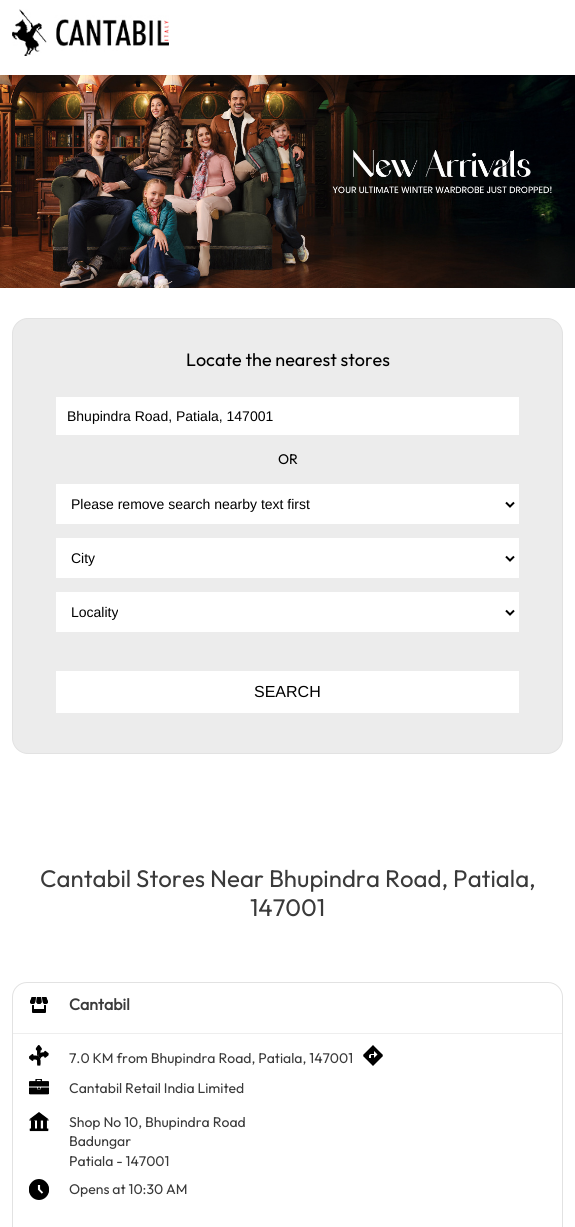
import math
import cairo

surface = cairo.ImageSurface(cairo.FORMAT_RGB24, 575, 1227)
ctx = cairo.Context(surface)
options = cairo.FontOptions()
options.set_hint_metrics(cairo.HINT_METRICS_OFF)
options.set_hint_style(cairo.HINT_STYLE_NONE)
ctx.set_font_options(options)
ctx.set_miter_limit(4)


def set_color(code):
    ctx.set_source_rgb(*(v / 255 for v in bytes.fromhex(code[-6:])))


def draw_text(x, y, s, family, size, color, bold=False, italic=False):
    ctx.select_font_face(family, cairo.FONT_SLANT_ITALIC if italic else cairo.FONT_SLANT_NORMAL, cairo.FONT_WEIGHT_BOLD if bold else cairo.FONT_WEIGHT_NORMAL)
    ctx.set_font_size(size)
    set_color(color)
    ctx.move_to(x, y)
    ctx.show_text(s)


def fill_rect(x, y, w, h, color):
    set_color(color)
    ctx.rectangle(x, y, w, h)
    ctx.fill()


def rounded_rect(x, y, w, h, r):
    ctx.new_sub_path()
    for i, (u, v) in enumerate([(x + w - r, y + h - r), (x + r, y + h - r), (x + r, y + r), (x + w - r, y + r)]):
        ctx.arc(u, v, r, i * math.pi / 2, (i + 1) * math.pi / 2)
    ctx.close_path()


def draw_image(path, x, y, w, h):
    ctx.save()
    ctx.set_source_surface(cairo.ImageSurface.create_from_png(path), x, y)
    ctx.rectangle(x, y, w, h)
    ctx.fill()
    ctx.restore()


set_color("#ffffff")
ctx.paint()
draw_image("assets/img1.png", 12, 9, 157, 47)
draw_image("assets/img2.png", 0, 75, 575, 213)
set_color("#ececec")
rounded_rect(12.5, 318.5, 550, 435, 15.5)
ctx.fill_preserve()
set_color("#e2e2e2")
ctx.set_line_width(1)
ctx.stroke()
draw_text(186, 366, "Locate the nearest stores", "Outfit", 18, "#000000")
fill_rect(56, 397, 463, 38, "#ffffff")
draw_text(67, 421, "Bhupindra Road, Patiala, 147001", "Liberation Sans", 14, "#000000")
draw_text(278, 464, "OR", "Outfit", 14, "#000000")
fill_rect(56, 484, 463, 40, "#ffffff")
ctx.new_path()
ctx.move_to(506, 502.5)
ctx.line_to(510, 506.5)
ctx.line_to(514, 502.5)
set_color("#000000")
ctx.set_line_width(2)
ctx.stroke()
draw_text(71, 509, "Please remove search nearby text first", "Liberation Sans", 14, "#000000")
fill_rect(56, 538, 463, 40, "#ffffff")
ctx.new_path()
ctx.move_to(506, 556.5)
ctx.line_to(510, 560.5)
ctx.line_to(514, 556.5)
set_color("#000000")
ctx.stroke()
draw_text(71, 563, "City", "Liberation Sans", 14, "#000000")
fill_rect(56, 592, 463, 40, "#ffffff")
ctx.new_path()
ctx.move_to(506, 610.5)
ctx.line_to(510, 614.5)
ctx.line_to(514, 610.5)
set_color("#000000")
ctx.stroke()
draw_text(71, 617, "Locality", "Liberation Sans", 14, "#000000")
fill_rect(56, 671, 463, 42, "#ffffff")
draw_text(254, 697, "SEARCH", "Liberation Sans", 16, "#000000")
draw_text(40, 887, "Cantabil Stores Near Bhupindra Road, Patiala,", "Outfit", 24, "#3a3a3a")
draw_text(250, 916, "147001", "Outfit", 24, "#3a3a3a")
rounded_rect(12.5, 982.5, 550, 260, 14.5)
set_color("#e2e2e2")
ctx.set_line_width(1)
ctx.stroke()
fill_rect(13, 1033, 549, 1, "#eeeeee")
draw_image("assets/img3.png", 30, 997, 18, 16)
draw_image("assets/img4.png", 30, 997, 18, 16)
draw_text(69, 1010, "Cantabil", "Outfit", 16, "#3a3a3a", bold=True)
draw_image("assets/img5.png", 29, 1045, 20, 20)
draw_image("assets/img6.png", 29, 1046, 20, 20)
draw_text(69, 1063, "7.0 KM from Bhupindra Road, Patiala, 147001", "Outfit", 14, "#3a3a3a")
draw_image("assets/img7.png", 363, 1045, 20, 14)
draw_image("assets/img8.png", 363, 1050, 20, 16)
draw_image("assets/img9.png", 29, 1079, 20, 16)
draw_image("assets/img10.png", 29, 1079, 20, 16)
draw_text(69, 1093, "Cantabil Retail India Limited", "Outfit", 14, "#3a3a3a")
draw_image("assets/img11.png", 29, 1112, 20, 18)
draw_image("assets/img12.png", 29, 1119, 20, 13)
draw_text(69, 1127, "Shop No 10, Bhupindra Road", "Outfit", 14, "#3a3a3a")
draw_text(69, 1146, "Badungar", "Outfit", 14, "#3a3a3a")
draw_text(69, 1166, "Patiala - 147001", "Outfit", 14, "#3a3a3a")
draw_image("assets/img13.png", 29, 1179, 20, 20)
draw_image("assets/img14.png", 29, 1184, 20, 16)
draw_text(69, 1194, "Opens at 10:30 AM", "Outfit", 14, "#3a3a3a")
surface.write_to_png("output.png")
